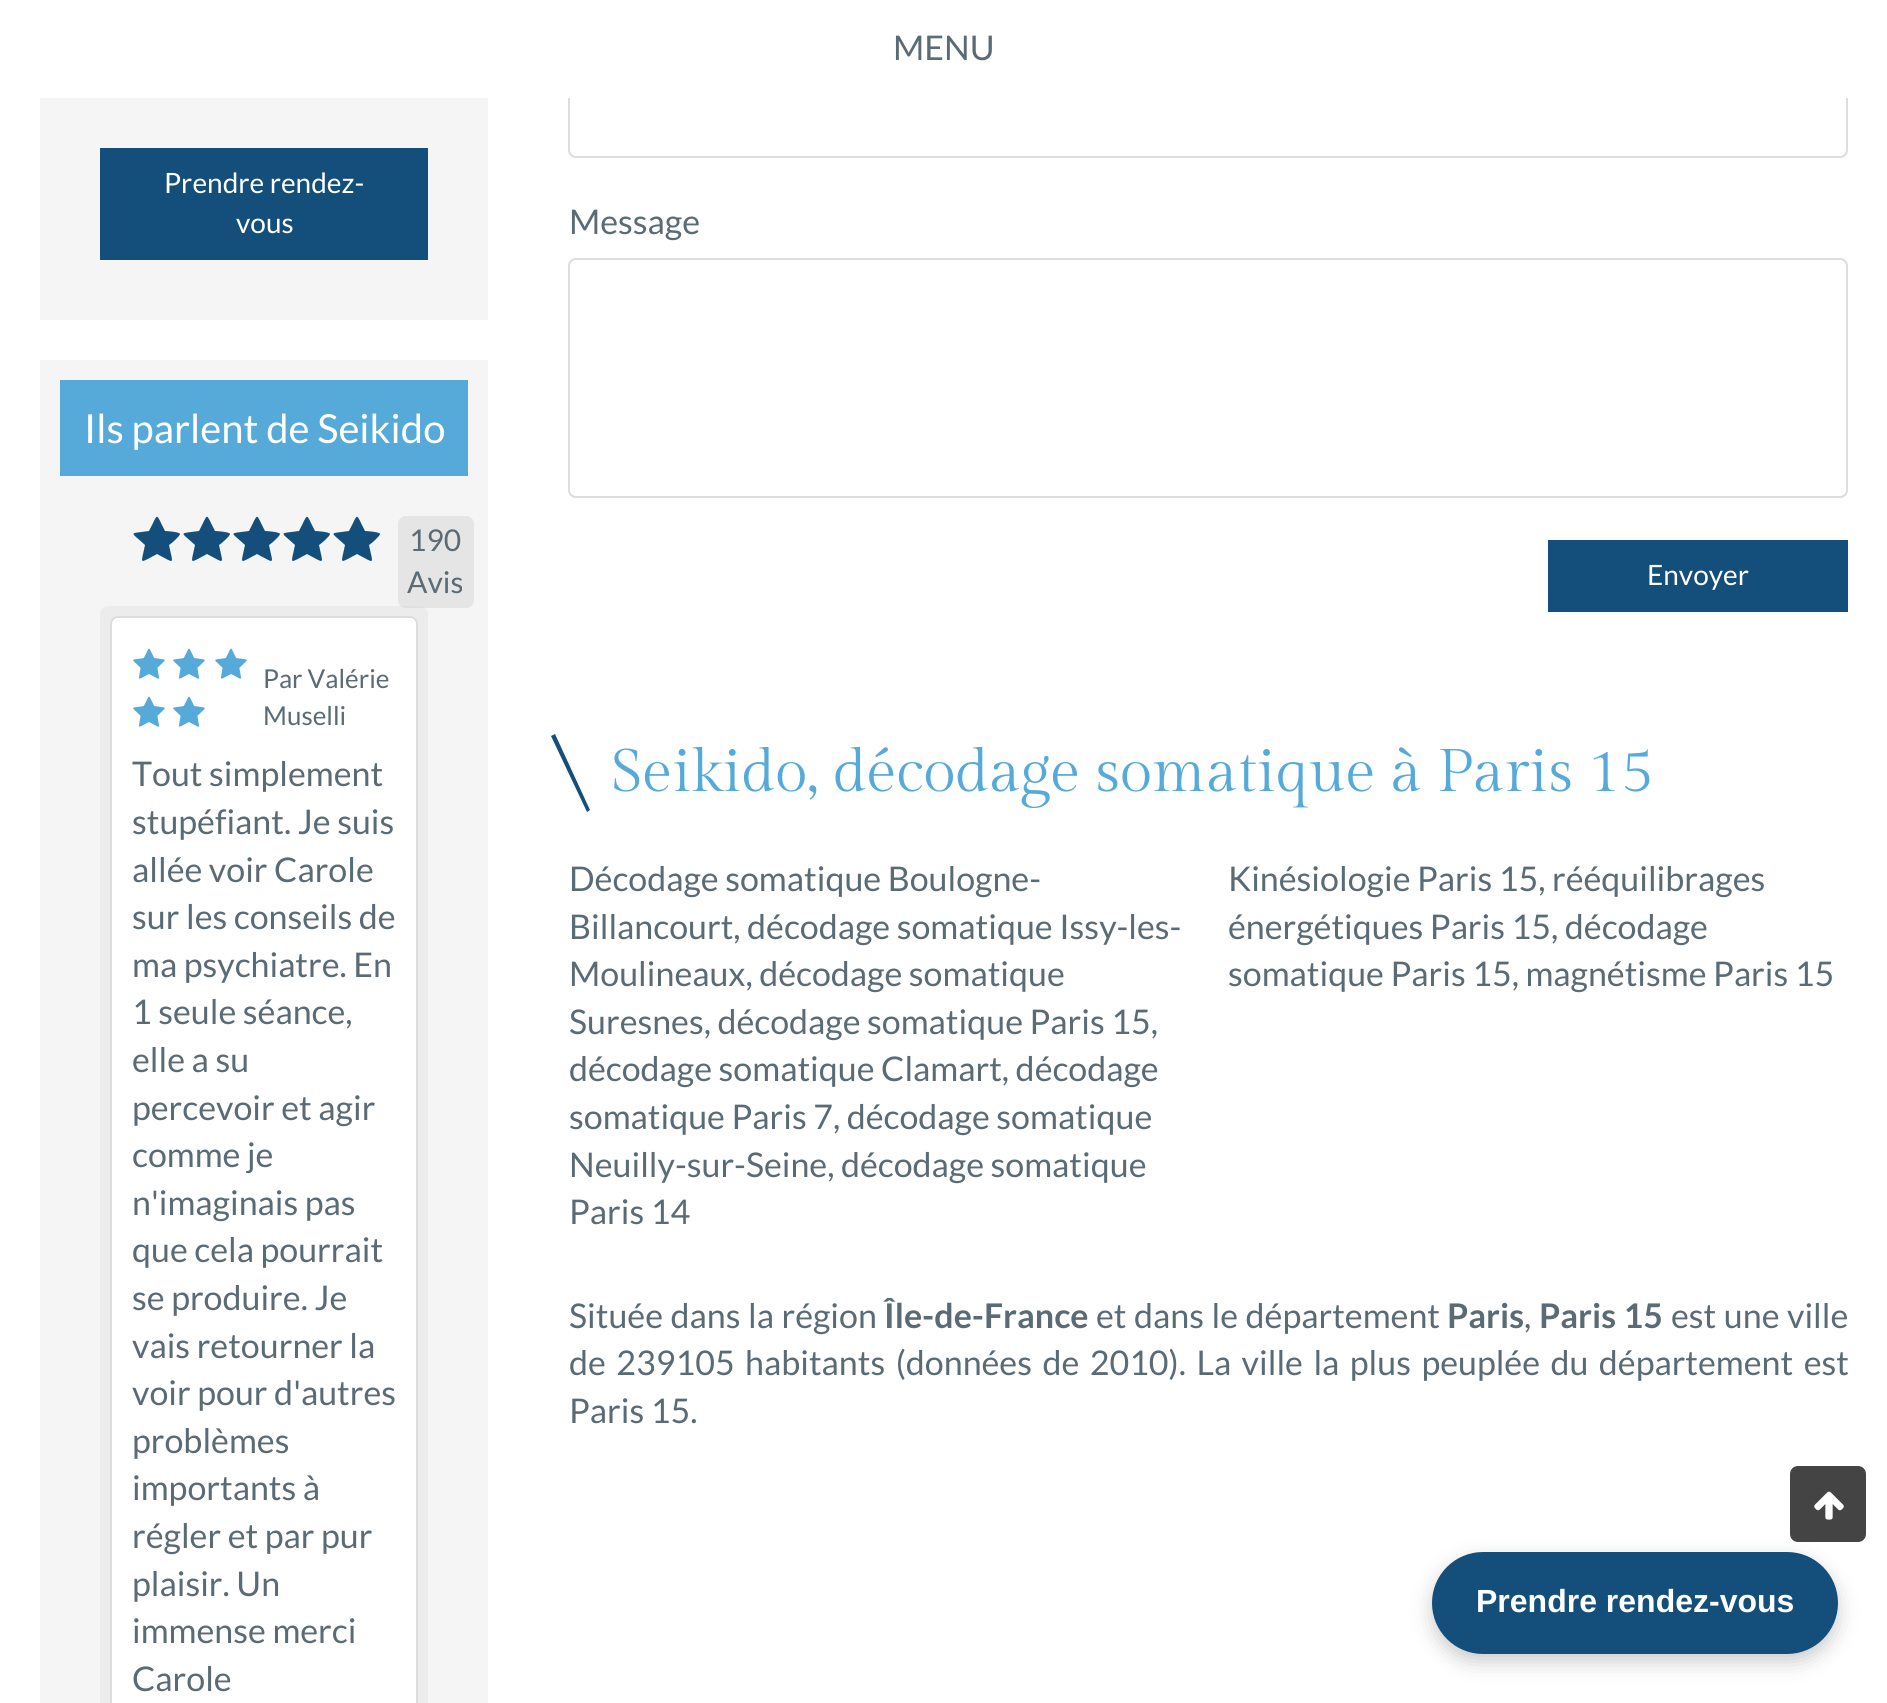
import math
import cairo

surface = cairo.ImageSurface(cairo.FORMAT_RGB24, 1887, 1703)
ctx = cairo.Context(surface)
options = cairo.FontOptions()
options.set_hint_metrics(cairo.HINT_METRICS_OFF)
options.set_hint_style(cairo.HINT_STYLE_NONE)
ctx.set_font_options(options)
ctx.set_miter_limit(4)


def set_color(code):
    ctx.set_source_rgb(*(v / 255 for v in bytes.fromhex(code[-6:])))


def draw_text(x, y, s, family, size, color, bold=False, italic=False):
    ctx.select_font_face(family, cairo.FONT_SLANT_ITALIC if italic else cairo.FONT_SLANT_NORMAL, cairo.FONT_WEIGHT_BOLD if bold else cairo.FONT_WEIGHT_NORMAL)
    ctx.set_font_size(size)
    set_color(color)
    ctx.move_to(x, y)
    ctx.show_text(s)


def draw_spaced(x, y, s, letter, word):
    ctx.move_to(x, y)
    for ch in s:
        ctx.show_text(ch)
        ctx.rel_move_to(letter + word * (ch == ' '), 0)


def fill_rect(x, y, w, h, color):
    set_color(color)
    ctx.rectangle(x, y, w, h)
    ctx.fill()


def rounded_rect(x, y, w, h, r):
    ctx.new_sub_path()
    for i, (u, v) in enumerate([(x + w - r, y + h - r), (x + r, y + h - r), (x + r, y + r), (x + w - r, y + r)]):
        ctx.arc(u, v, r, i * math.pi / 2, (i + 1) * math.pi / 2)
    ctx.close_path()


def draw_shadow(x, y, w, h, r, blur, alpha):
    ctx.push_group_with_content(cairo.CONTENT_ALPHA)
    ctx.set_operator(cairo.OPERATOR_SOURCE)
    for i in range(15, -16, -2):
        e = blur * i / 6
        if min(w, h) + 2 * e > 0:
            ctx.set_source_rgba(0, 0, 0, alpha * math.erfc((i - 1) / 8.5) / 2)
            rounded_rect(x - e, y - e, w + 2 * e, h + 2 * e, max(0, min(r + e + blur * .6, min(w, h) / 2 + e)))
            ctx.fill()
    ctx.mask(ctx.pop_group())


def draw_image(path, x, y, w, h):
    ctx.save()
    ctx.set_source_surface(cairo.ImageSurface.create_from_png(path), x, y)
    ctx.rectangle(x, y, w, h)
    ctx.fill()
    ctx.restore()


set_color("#ffffff")
ctx.paint()
rounded_rect(569, 89, 1278, 68, 7)
set_color("#dddddd")
ctx.stroke()
fill_rect(568, 88, 1280, 10, "#ffffff")
draw_text(893, 60, "MENU", "Lato", 34, "#5b6b75")
fill_rect(40, 98, 448, 222, "#f5f5f5")
fill_rect(100, 148, 328, 112, "#134f7a")
draw_text(164, 193, "Prendre rendez-", "Lato", 28, "#ffffff")
draw_text(236, 233, "vous", "Lato", 28, "#ffffff")
fill_rect(40, 360, 448, 1343, "#f5f5f5")
fill_rect(60, 380, 408, 96, "#55aada")
draw_text(84, 443, "Ils parlent de Seikido", "Lato", 40, "#ffffff")
set_color("#134f7a")
ctx.new_path()
ctx.move_to(180, 534)
ctx.curve_to(180, 536, 171, 544, 169, 545)
ctx.curve_to(173, 565, 176, 564, 157, 554)
ctx.curve_to(138, 564, 141, 565, 145, 545)
ctx.curve_to(130, 531, 128, 534, 149, 531)
ctx.curve_to(159, 512, 155, 512, 165, 531)
ctx.curve_to(167, 531, 180, 532, 180, 534)
ctx.close_path()
ctx.fill()
ctx.new_path()
ctx.move_to(230, 534)
ctx.curve_to(230, 536, 221, 544, 219, 545)
ctx.curve_to(223, 565, 226, 564, 207, 554)
ctx.curve_to(188, 564, 191, 565, 195, 545)
ctx.curve_to(180, 531, 178, 534, 199, 531)
ctx.curve_to(209, 512, 205, 512, 215, 531)
ctx.curve_to(217, 531, 230, 532, 230, 534)
ctx.close_path()
ctx.fill()
ctx.new_path()
ctx.move_to(280, 534)
ctx.curve_to(280, 536, 271, 544, 269, 545)
ctx.curve_to(273, 565, 276, 564, 257, 554)
ctx.curve_to(238, 564, 241, 565, 245, 545)
ctx.curve_to(230, 531, 228, 534, 249, 531)
ctx.curve_to(259, 512, 255, 512, 265, 531)
ctx.curve_to(267, 531, 280, 532, 280, 534)
ctx.close_path()
ctx.fill()
ctx.new_path()
ctx.move_to(330, 534)
ctx.curve_to(330, 536, 321, 544, 319, 545)
ctx.curve_to(323, 565, 326, 564, 307, 554)
ctx.curve_to(288, 564, 291, 565, 295, 545)
ctx.curve_to(280, 531, 278, 534, 299, 531)
ctx.curve_to(309, 512, 305, 512, 315, 531)
ctx.curve_to(317, 531, 330, 532, 330, 534)
ctx.close_path()
ctx.fill()
ctx.new_path()
ctx.move_to(380, 534)
ctx.curve_to(380, 536, 371, 544, 369, 545)
ctx.curve_to(373, 565, 376, 564, 357, 554)
ctx.curve_to(338, 564, 341, 565, 345, 545)
ctx.curve_to(330, 531, 328, 534, 349, 531)
ctx.curve_to(359, 512, 355, 512, 365, 531)
ctx.curve_to(367, 531, 380, 532, 380, 534)
ctx.close_path()
ctx.fill()
set_color("#e5e5e5")
rounded_rect(398, 516, 76, 92, 8)
ctx.fill()
draw_text(409, 551, "190", "Lato", 30, "#5b6b75")
draw_text(407, 593, "Avis", "Lato", 30, "#5b6b75")
ctx.set_source_rgba(0.784, 0.784, 0.784, 0.2)
rounded_rect(100, 606, 328, 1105, 8)
ctx.fill()
set_color("#ffffff")
rounded_rect(111, 617, 306, 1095, 7)
ctx.fill_preserve()
set_color("#dddddd")
ctx.stroke()
draw_image("assets/img1.png", 133, 648, 32, 31)
draw_image("assets/img1.png", 173, 648, 32, 31)
draw_image("assets/img1.png", 215, 648, 32, 31)
draw_image("assets/img1.png", 133, 696, 32, 31)
draw_image("assets/img1.png", 173, 696, 32, 31)
draw_text(263, 688, "Par Valérie", "Lato", 26, "#5b6b75")
draw_text(263, 725, "Muselli", "Lato", 26, "#5b6b75")
draw_text(132, 786, "Tout simplement", "Lato", 34, "#5b6b75")
draw_text(132, 834, "stupéfiant. Je suis", "Lato", 34, "#5b6b75")
draw_text(132, 882, "allée voir Carole", "Lato", 34, "#5b6b75")
draw_text(132, 929, "sur les conseils de", "Lato", 34, "#5b6b75")
draw_text(132, 977, "ma psychiatre. En", "Lato", 34, "#5b6b75")
draw_text(132, 1024, "1 seule séance,", "Lato", 34, "#5b6b75")
draw_text(132, 1072, "elle a su", "Lato", 34, "#5b6b75")
draw_text(132, 1120, "percevoir et agir", "Lato", 34, "#5b6b75")
draw_text(132, 1167, "comme je", "Lato", 34, "#5b6b75")
draw_text(132, 1215, "n'imaginais pas", "Lato", 34, "#5b6b75")
draw_text(132, 1262, "que cela pourrait", "Lato", 34, "#5b6b75")
draw_text(132, 1310, "se produire. Je", "Lato", 34, "#5b6b75")
draw_text(132, 1358, "vais retourner la", "Lato", 34, "#5b6b75")
draw_text(132, 1405, "voir pour d'autres", "Lato", 34, "#5b6b75")
draw_text(132, 1453, "problèmes", "Lato", 34, "#5b6b75")
draw_text(132, 1500, "importants à", "Lato", 34, "#5b6b75")
draw_text(132, 1548, "régler et par pur", "Lato", 34, "#5b6b75")
draw_text(132, 1596, "plaisir. Un", "Lato", 34, "#5b6b75")
draw_text(132, 1643, "immense merci", "Lato", 34, "#5b6b75")
draw_text(132, 1691, "Carole", "Lato", 34, "#5b6b75")
draw_text(569, 234, "Message", "Lato", 34, "#5b6b75")
rounded_rect(569, 259, 1278, 238, 7)
set_color("#dddddd")
ctx.stroke()
fill_rect(1548, 540, 300, 72, "#134f7a")
draw_text(1647, 585, "Envoyer", "Lato", 28, "#ffffff")
set_color("#134f7a")
ctx.new_path()
ctx.move_to(551, 736)
ctx.line_to(555, 734)
ctx.line_to(590, 810)
ctx.line_to(587, 812)
ctx.close_path()
ctx.fill()
draw_text(611, 791, "Seikido, décodage somatique à Paris 15", "Gilda Display", 60, "#55aada")
draw_text(569, 891, "Décodage somatique Boulogne-", "Lato", 34, "#5b6b75")
draw_text(569, 939, "Billancourt, décodage somatique Issy-les-", "Lato", 34, "#5b6b75")
draw_text(569, 986, "Moulineaux, décodage somatique", "Lato", 34, "#5b6b75")
draw_text(569, 1034, "Suresnes, décodage somatique Paris 15,", "Lato", 34, "#5b6b75")
draw_text(569, 1081, "décodage somatique Clamart, décodage", "Lato", 34, "#5b6b75")
draw_text(569, 1129, "somatique Paris 7, décodage somatique", "Lato", 34, "#5b6b75")
draw_text(569, 1177, "Neuilly-sur-Seine, décodage somatique", "Lato", 34, "#5b6b75")
draw_text(569, 1224, "Paris 14", "Lato", 34, "#5b6b75")
draw_text(1228, 891, "Kinésiologie Paris 15, rééquilibrages", "Lato", 34, "#5b6b75")
draw_text(1228, 939, "énergétiques Paris 15, décodage", "Lato", 34, "#5b6b75")
draw_text(1228, 986, "somatique Paris 15, magnétisme Paris 15", "Lato", 34, "#5b6b75")
draw_spaced(569, 1328, "Située dans la région", 0, 1)
draw_text(884, 1328, "Île-de-France", "Lato", 34, "#5b6b75", bold=True)
ctx.select_font_face("Lato")
draw_spaced(1096, 1328, "et dans le département", 0, 1)
draw_text(1447, 1328, "Paris", "Lato", 34, "#5b6b75", bold=True)
draw_text(1524, 1328, ",", "Lato", 34, "#5b6b75")
ctx.select_font_face("Lato", cairo.FONT_SLANT_NORMAL, cairo.FONT_WEIGHT_BOLD)
draw_spaced(1539, 1328, "Paris 15", 0, 1)
ctx.select_font_face("Lato")
draw_spaced(1671, 1328, "est une ville", 0, 1)
draw_spaced(569, 1375, "de 239105 habitants (données de 2010). La ville la plus peuplée du département est", 0, 3.9)
draw_text(569, 1423, "Paris 15.", "Lato", 34, "#5b6b75")
set_color("#444444")
rounded_rect(1789, 1465, 78, 78, 9)
ctx.fill_preserve()
set_color("#ffffff")
ctx.stroke()
draw_image("assets/img2.png", 1814, 1491, 30, 29)
set_color("#000000")
draw_shadow(1432, 1560, 406, 102, 51, 10, 0.2)
set_color("#134f7a")
rounded_rect(1432, 1552, 406, 102, 51)
ctx.fill()
draw_text(1476, 1612, "Prendre rendez-vous", "Liberation Sans", 32, "#ffffff", bold=True)
surface.write_to_png("output.png")
